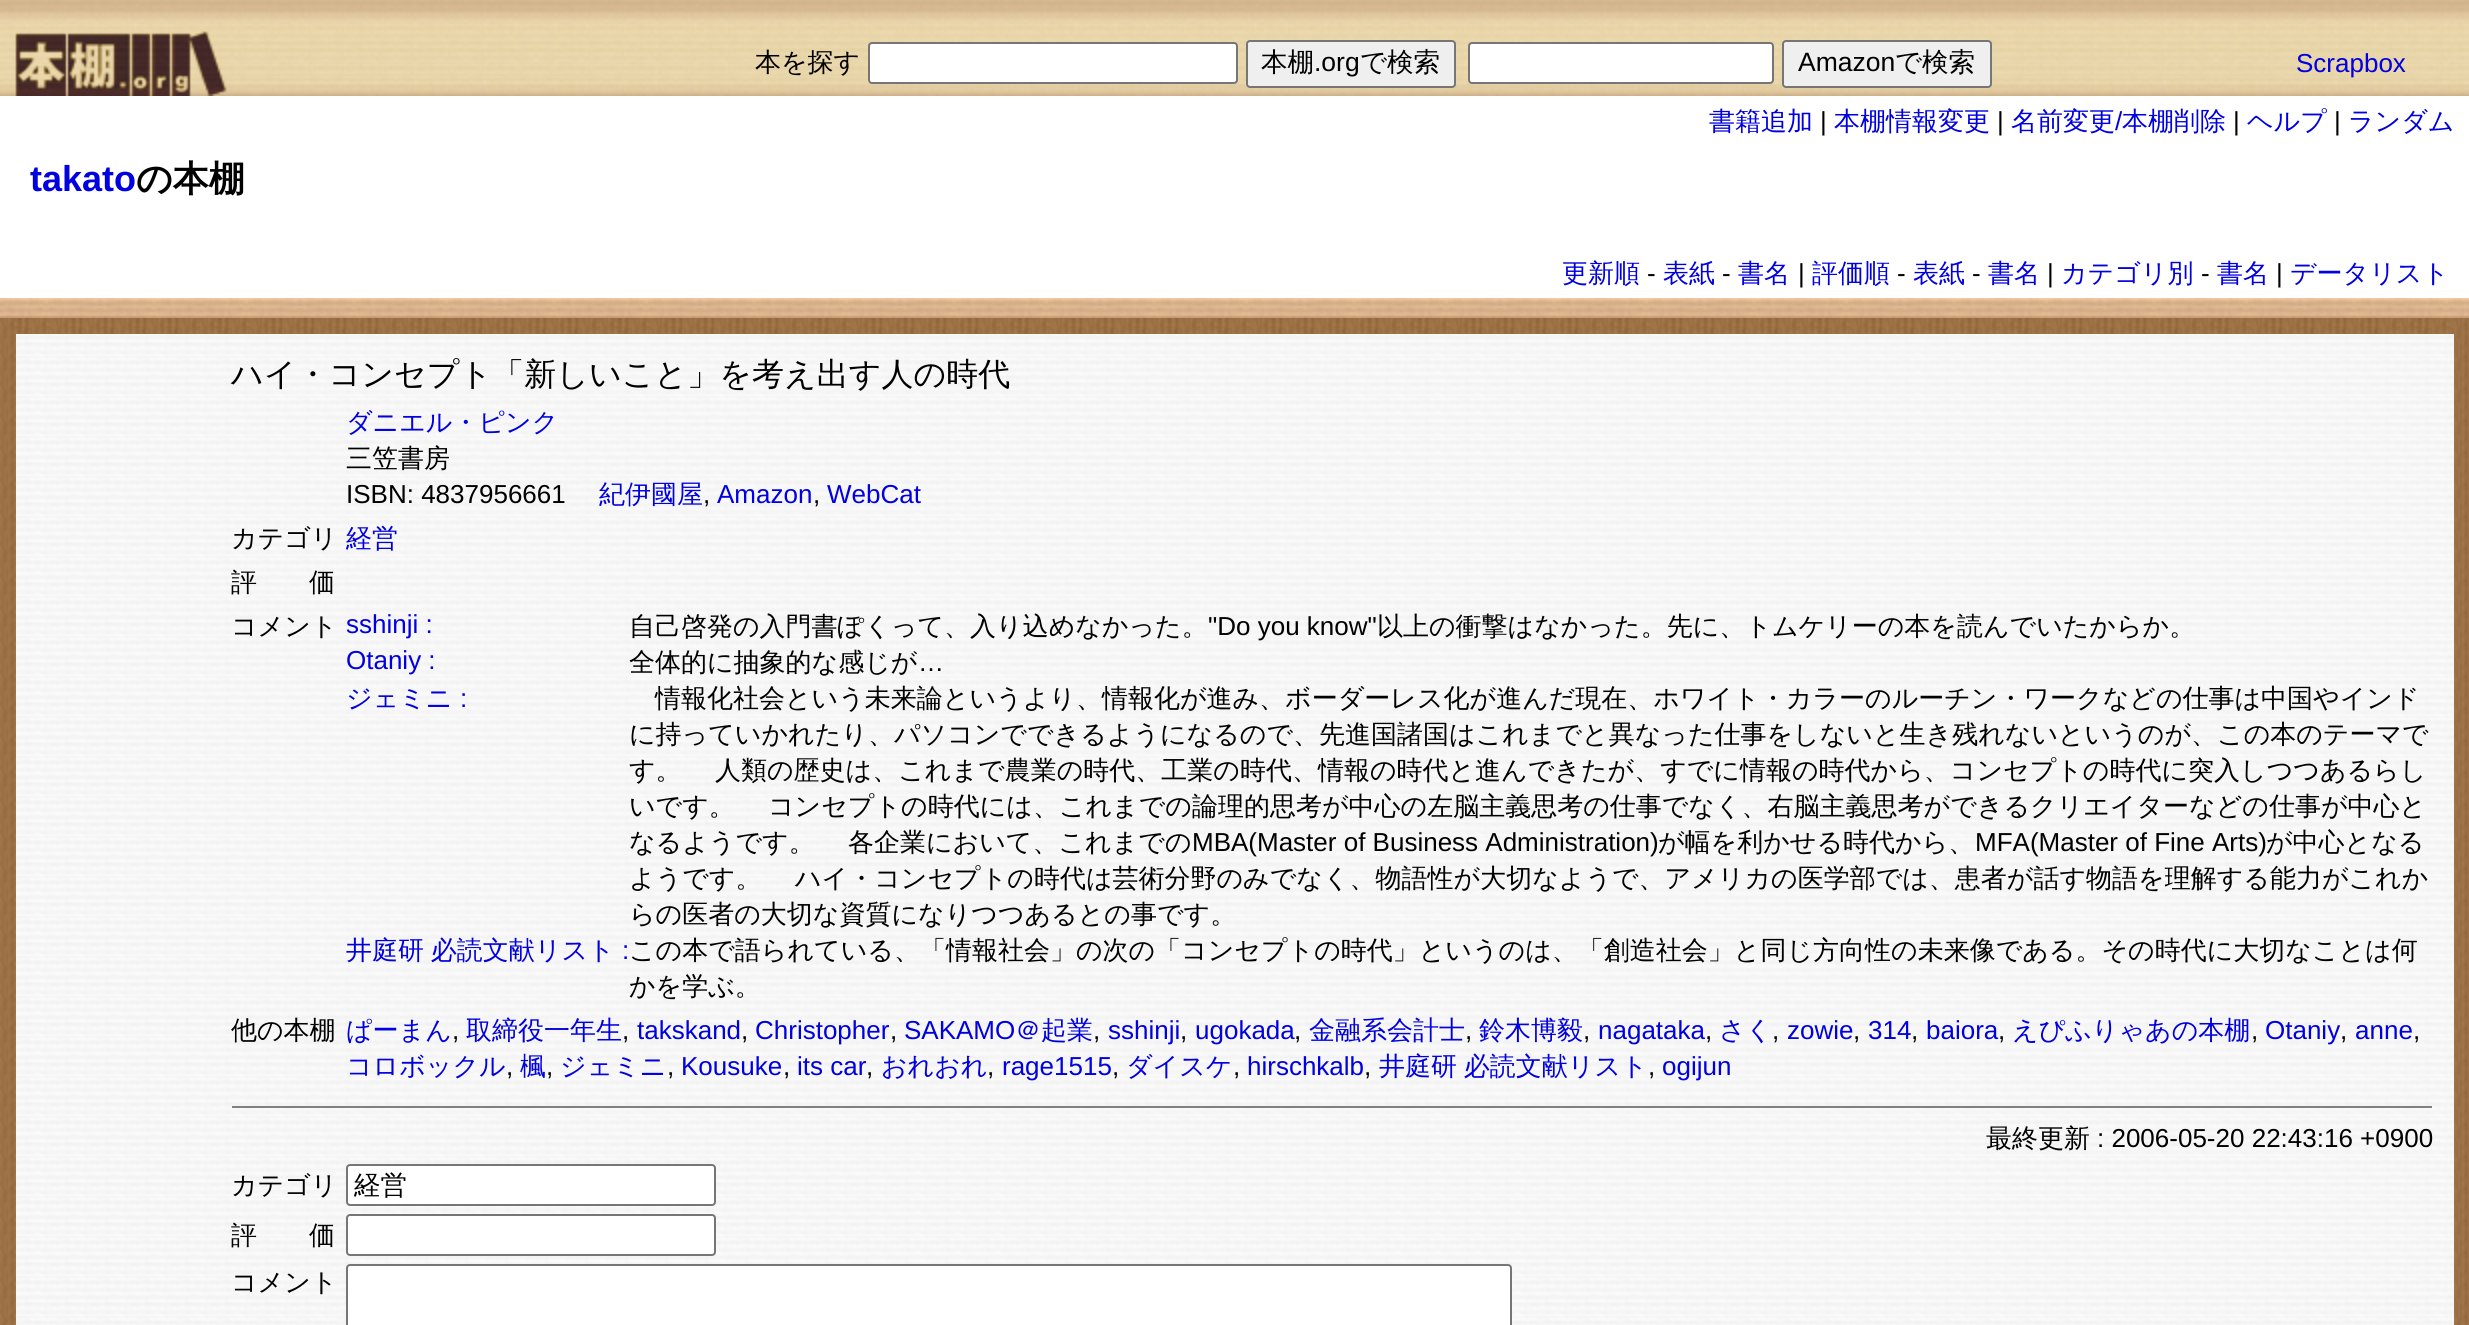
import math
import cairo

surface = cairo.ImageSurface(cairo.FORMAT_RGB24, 2469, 1325)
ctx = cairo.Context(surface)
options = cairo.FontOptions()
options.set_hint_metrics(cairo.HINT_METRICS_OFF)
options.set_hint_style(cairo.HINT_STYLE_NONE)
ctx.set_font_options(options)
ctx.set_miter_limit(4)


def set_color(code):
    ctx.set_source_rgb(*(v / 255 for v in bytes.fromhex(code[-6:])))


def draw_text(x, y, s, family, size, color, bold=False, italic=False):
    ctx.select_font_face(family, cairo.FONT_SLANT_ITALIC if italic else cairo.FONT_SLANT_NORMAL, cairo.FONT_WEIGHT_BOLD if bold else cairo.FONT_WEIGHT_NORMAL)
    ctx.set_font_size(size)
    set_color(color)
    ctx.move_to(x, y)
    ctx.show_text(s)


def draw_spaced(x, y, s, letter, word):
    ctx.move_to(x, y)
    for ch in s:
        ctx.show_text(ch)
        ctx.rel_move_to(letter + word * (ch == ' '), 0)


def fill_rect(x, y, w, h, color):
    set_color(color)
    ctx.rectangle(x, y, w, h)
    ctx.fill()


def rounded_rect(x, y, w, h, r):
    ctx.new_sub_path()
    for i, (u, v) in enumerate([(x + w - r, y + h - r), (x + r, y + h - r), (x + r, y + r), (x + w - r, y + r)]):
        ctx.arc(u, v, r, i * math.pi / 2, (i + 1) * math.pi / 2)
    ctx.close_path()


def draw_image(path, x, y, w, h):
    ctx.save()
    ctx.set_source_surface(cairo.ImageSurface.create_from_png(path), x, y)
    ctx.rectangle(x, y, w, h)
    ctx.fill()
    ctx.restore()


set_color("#ffffff")
ctx.paint()
draw_image("assets/img1.png", 0, 0, 2469, 96)
draw_text(755, 71, "本を探す", "WenQuanYi Zen Hei Medium", 26, "#000000")
set_color("#ffffff")
rounded_rect(869, 43, 368, 40, 3)
ctx.fill_preserve()
set_color("#767676")
ctx.stroke()
set_color("#efefef")
rounded_rect(1247, 41, 208, 46, 3)
ctx.fill_preserve()
set_color("#767676")
ctx.stroke()
draw_text(1261, 71, "本棚", "WenQuanYi Zen Hei Medium", 26.5, "#000000")
draw_text(1314, 71, ".org", "Liberation Sans", 26.5, "#000000")
draw_text(1360, 71, "で検索", "WenQuanYi Zen Hei Medium", 26.5, "#000000")
set_color("#ffffff")
rounded_rect(1469, 43, 304, 40, 3)
ctx.fill_preserve()
set_color("#767676")
ctx.stroke()
set_color("#efefef")
rounded_rect(1783, 41, 208, 46, 3)
ctx.fill_preserve()
set_color("#767676")
ctx.stroke()
draw_text(1798, 71, "Amazon", "Liberation Sans", 26.5, "#000000")
draw_text(1895, 71, "で検索", "WenQuanYi Zen Hei Medium", 26.5, "#000000")
draw_text(2296, 72, "Scrapbox", "Liberation Sans", 26, "#0000e0")
draw_text(1709, 130, "書籍追加", "WenQuanYi Zen Hei Medium", 26, "#0000e0")
draw_text(1820, 130, "|", "Liberation Sans", 26, "#000000")
draw_text(1834, 130, "本棚情報変更", "WenQuanYi Zen Hei Medium", 26, "#0000e0")
draw_text(1997, 130, "|", "Liberation Sans", 26, "#000000")
draw_text(2011, 130, "名前変更", "WenQuanYi Zen Hei Medium", 26, "#0000e0")
draw_text(2115, 130, "/", "Liberation Sans", 26, "#0000e0")
draw_text(2122, 130, "本棚削除", "WenQuanYi Zen Hei Medium", 26, "#0000e0")
draw_text(2233, 130, "|", "Liberation Sans", 26, "#000000")
draw_text(2247, 130, "ヘルプ", "WenQuanYi Zen Hei Medium", 26, "#0000e0")
draw_text(2334, 130, "|", "Liberation Sans", 26, "#000000")
draw_text(2348, 130, "ランダム", "WenQuanYi Zen Hei Medium", 26, "#0000e0")
draw_text(30, 191, "takato", "Liberation Sans", 36, "#0000e0", bold=True)
draw_text(136, 191, "の本棚", "WenQuanYi Zen Hei", 36, "#000000", bold=True)
draw_text(1562, 282, "更新順", "WenQuanYi Zen Hei Medium", 26, "#0000e0")
draw_text(1647, 282, "-", "Liberation Sans", 26, "#000000")
draw_text(1663, 282, "表紙", "WenQuanYi Zen Hei Medium", 26, "#0000e0")
draw_text(1722, 282, "-", "Liberation Sans", 26, "#000000")
draw_text(1738, 282, "書名", "WenQuanYi Zen Hei Medium", 26, "#0000e0")
draw_text(1798, 282, "|", "Liberation Sans", 26, "#000000")
draw_text(1812, 282, "評価順", "WenQuanYi Zen Hei Medium", 26, "#0000e0")
draw_text(1897, 282, "-", "Liberation Sans", 26, "#000000")
draw_text(1913, 282, "表紙", "WenQuanYi Zen Hei Medium", 26, "#0000e0")
draw_text(1972, 282, "-", "Liberation Sans", 26, "#000000")
draw_text(1988, 282, "書名", "WenQuanYi Zen Hei Medium", 26, "#0000e0")
draw_text(2047, 282, "|", "Liberation Sans", 26, "#000000")
draw_text(2061, 282, "カテゴリ別", "WenQuanYi Zen Hei Medium", 26, "#0000e0")
draw_text(2201, 282, "-", "Liberation Sans", 26, "#000000")
draw_text(2217, 282, "書名", "WenQuanYi Zen Hei Medium", 26, "#0000e0")
draw_text(2276, 282, "|", "Liberation Sans", 26, "#000000")
draw_text(2290, 282, "データリスト", "WenQuanYi Zen Hei Medium", 26, "#0000e0")
draw_image("assets/img2.png", 0, 318, 2469, 1007)
draw_image("assets/img3.png", 0, 298, 2469, 20)
draw_image("assets/img4.png", 16, 334, 2438, 991)
draw_text(231, 385, "ハイ・コンセプト「新しいこと」を考え出す人の時代", "WenQuanYi Zen Hei Medium", 32, "#000000")
draw_text(346, 431, "ダニエル・ピンク", "WenQuanYi Zen Hei Medium", 26, "#0000e0")
draw_text(346, 467, "三笠書房", "WenQuanYi Zen Hei Medium", 26, "#000000")
draw_text(346, 503, "ISBN: 4837956661", "Liberation Sans", 26, "#000000")
draw_text(599, 503, "紀伊國屋", "WenQuanYi Zen Hei Medium", 26, "#0000e0")
draw_text(703, 503, ",", "Liberation Sans", 26, "#000000")
draw_text(717, 503, "Amazon", "Liberation Sans", 26, "#0000e0")
draw_text(813, 503, ",", "Liberation Sans", 26, "#000000")
draw_text(827, 503, "WebCat", "Liberation Sans", 26, "#0000e0")
draw_text(231, 547, "カテゴリ", "WenQuanYi Zen Hei Medium", 26, "#000000")
draw_text(346, 547, "経営", "WenQuanYi Zen Hei Medium", 26, "#0000e0")
draw_text(231, 591, "評　　価", "WenQuanYi Zen Hei Medium", 26, "#000000")
draw_text(231, 635, "コメント", "WenQuanYi Zen Hei Medium", 26, "#000000")
draw_text(346, 633, "sshinji :", "Liberation Sans", 26, "#0000e0")
draw_text(629, 635, "自己啓発の入門書ぽくって、入り込めなかった。", "WenQuanYi Zen Hei Medium", 26, "#000000")
draw_text(1208, 635, "\"Do you know\"", "Liberation Sans", 26, "#000000")
draw_text(1377, 635, "以上の衝撃はなかった。先に、トムケリーの本を読んでいたからか。", "WenQuanYi Zen Hei Medium", 26, "#000000")
draw_text(346, 669, "Otaniy :", "Liberation Sans", 26, "#0000e0")
draw_text(629, 671, "全体的に抽象的な感じが", "WenQuanYi Zen Hei Medium", 26, "#000000")
draw_text(918, 671, "…", "Liberation Sans", 26, "#000000")
draw_text(346, 707, "ジェミニ", "WenQuanYi Zen Hei Medium", 26, "#0000e0")
draw_text(460, 707, ":", "Liberation Sans", 26, "#0000e0")
draw_text(655, 707, "情報化社会という未来論というより、情報化が進み、ボーダーレス化が進んだ現在、ホワイト・カラーのルーチン・ワークなどの仕事は中国やインド", "WenQuanYi Zen Hei Medium", 26, "#000000")
draw_text(629, 743, "に持っていかれたり、パソコンでできるようになるので、先進国諸国はこれまでと異なった仕事をしないと生き残れないというのが、この本のテーマで", "WenQuanYi Zen Hei Medium", 26, "#000000")
draw_text(629, 779, "す。", "WenQuanYi Zen Hei Medium", 26, "#000000")
draw_text(715, 779, "人類の歴史は、これまで農業の時代、工業の時代、情報の時代と進んできたが、すでに情報の時代から、コンセプトの時代に突入しつつあるらし", "WenQuanYi Zen Hei Medium", 26, "#000000")
draw_text(629, 815, "いです。", "WenQuanYi Zen Hei Medium", 26, "#000000")
draw_text(768, 815, "コンセプトの時代には、これまでの論理的思考が中心の左脳主義思考の仕事でなく、右脳主義思考ができるクリエイターなどの仕事が中心と", "WenQuanYi Zen Hei Medium", 26, "#000000")
draw_text(629, 851, "なるようです。", "WenQuanYi Zen Hei Medium", 26, "#000000")
draw_text(848, 851, "各企業において、これまでの", "WenQuanYi Zen Hei Medium", 26, "#000000")
draw_text(1192, 851, "MBA(Master of Business Administration)", "Liberation Sans", 26, "#000000")
draw_text(1658, 851, "が幅を利かせる時代から、", "WenQuanYi Zen Hei Medium", 26, "#000000")
draw_text(1975, 851, "MFA(Master of Fine Arts)", "Liberation Sans", 26, "#000000")
draw_text(2266, 851, "が中心となる", "WenQuanYi Zen Hei Medium", 26, "#000000")
draw_text(629, 887, "ようです。", "WenQuanYi Zen Hei Medium", 26, "#000000")
draw_text(795, 887, "ハイ・コンセプトの時代は芸術分野のみでなく、物語性が大切なようで、アメリカの医学部では、患者が話す物語を理解する能力がこれか", "WenQuanYi Zen Hei Medium", 26, "#000000")
draw_text(629, 923, "らの医者の大切な資質になりつつあるとの事です。", "WenQuanYi Zen Hei Medium", 26, "#000000")
set_color("#0000e0")
draw_spaced(346, 959, "井庭研 必読文献リスト", 0, -1)
draw_text(622, 959, ":", "Liberation Sans", 26, "#0000e0")
draw_text(629, 959, "この本で語られている、「情報社会」の次の「コンセプトの時代」というのは、「創造社会」と同じ方向性の未来像である。その時代に大切なことは何", "WenQuanYi Zen Hei Medium", 26, "#000000")
draw_text(629, 995, "かを学ぶ。", "WenQuanYi Zen Hei Medium", 26, "#000000")
draw_text(231, 1039, "他の本棚", "WenQuanYi Zen Hei Medium", 26, "#000000")
draw_text(346, 1039, "ぱーまん", "WenQuanYi Zen Hei Medium", 26, "#0000e0")
draw_text(452, 1039, ",", "Liberation Sans", 26, "#000000")
draw_text(466, 1039, "取締役一年生", "WenQuanYi Zen Hei Medium", 26, "#0000e0")
draw_text(622, 1039, ",", "Liberation Sans", 26, "#000000")
draw_text(637, 1039, "takskand", "Liberation Sans", 26, "#0000e0")
draw_text(741, 1039, ",", "Liberation Sans", 26, "#000000")
draw_text(755, 1039, "Christopher", "Liberation Sans", 26, "#0000e0")
draw_text(890, 1039, ",", "Liberation Sans", 26, "#000000")
draw_text(904, 1039, "SAKAMO", "Liberation Sans", 26, "#0000e0")
draw_text(1015, 1039, "＠起業", "WenQuanYi Zen Hei Medium", 26, "#0000e0")
draw_text(1093, 1039, ",", "Liberation Sans", 26, "#000000")
draw_text(1108, 1039, "sshinji", "Liberation Sans", 26, "#0000e0")
draw_text(1180, 1039, ",", "Liberation Sans", 26, "#000000")
draw_text(1195, 1039, "ugokada", "Liberation Sans", 26, "#0000e0")
draw_text(1294, 1039, ",", "Liberation Sans", 26, "#000000")
draw_text(1309, 1039, "金融系会計士", "WenQuanYi Zen Hei Medium", 26, "#0000e0")
draw_text(1465, 1039, ",", "Liberation Sans", 26, "#000000")
draw_text(1479, 1039, "鈴木博毅", "WenQuanYi Zen Hei Medium", 26, "#0000e0")
draw_text(1583, 1039, ",", "Liberation Sans", 26, "#000000")
draw_text(1598, 1039, "nagataka", "Liberation Sans", 26, "#0000e0")
draw_text(1705, 1039, ",", "Liberation Sans", 26, "#000000")
draw_text(1719, 1039, "さく", "WenQuanYi Zen Hei Medium", 26, "#0000e0")
draw_text(1772, 1039, ",", "Liberation Sans", 26, "#000000")
draw_text(1787, 1039, "zowie", "Liberation Sans", 26, "#0000e0")
draw_text(1853, 1039, ",", "Liberation Sans", 26, "#000000")
draw_text(1868, 1039, "314", "Liberation Sans", 26, "#0000e0")
draw_text(1911, 1039, ",", "Liberation Sans", 26, "#000000")
draw_text(1926, 1039, "baiora", "Liberation Sans", 26, "#0000e0")
draw_text(1998, 1039, ",", "Liberation Sans", 26, "#000000")
draw_text(2012, 1039, "えぴふりゃあの本棚", "WenQuanYi Zen Hei Medium", 26, "#0000e0")
draw_text(2251, 1039, ",", "Liberation Sans", 26, "#000000")
draw_text(2265, 1039, "Otaniy", "Liberation Sans", 26, "#0000e0")
draw_text(2340, 1039, ",", "Liberation Sans", 26, "#000000")
draw_text(2355, 1039, "anne", "Liberation Sans", 26, "#0000e0")
draw_text(2413, 1039, ",", "Liberation Sans", 26, "#000000")
draw_text(346, 1075, "コロボックル", "WenQuanYi Zen Hei Medium", 26, "#0000e0")
draw_text(506, 1075, ",", "Liberation Sans", 26, "#000000")
draw_text(520, 1075, "楓", "WenQuanYi Zen Hei Medium", 26, "#0000e0")
draw_text(546, 1075, ",", "Liberation Sans", 26, "#000000")
draw_text(560, 1075, "ジェミニ", "WenQuanYi Zen Hei Medium", 26, "#0000e0")
draw_text(667, 1075, ",", "Liberation Sans", 26, "#000000")
draw_text(681, 1075, "Kousuke", "Liberation Sans", 26, "#0000e0")
draw_text(783, 1075, ",", "Liberation Sans", 26, "#000000")
draw_text(797, 1075, "its car", "Liberation Sans", 26, "#0000e0")
draw_text(866, 1075, ",", "Liberation Sans", 26, "#000000")
draw_text(881, 1075, "おれおれ", "WenQuanYi Zen Hei Medium", 26, "#0000e0")
draw_text(987, 1075, ",", "Liberation Sans", 26, "#000000")
draw_text(1002, 1075, "rage1515", "Liberation Sans", 26, "#0000e0")
draw_text(1112, 1075, ",", "Liberation Sans", 26, "#000000")
draw_text(1126, 1075, "ダイスケ", "WenQuanYi Zen Hei Medium", 26, "#0000e0")
draw_text(1233, 1075, ",", "Liberation Sans", 26, "#000000")
draw_text(1247, 1075, "hirschkalb", "Liberation Sans", 26, "#0000e0")
draw_text(1364, 1075, ",", "Liberation Sans", 26, "#000000")
ctx.select_font_face("WenQuanYi Zen Hei Medium")
set_color("#0000e0")
draw_spaced(1379, 1075, "井庭研 必読文献リスト", 0, -1)
draw_text(1648, 1075, ",", "Liberation Sans", 26, "#000000")
draw_text(1662, 1075, "ogijun", "Liberation Sans", 26, "#0000e0")
fill_rect(232, 1106, 2200, 2, "#808080")
draw_text(1986, 1147, "最終更新", "WenQuanYi Zen Hei Medium", 26, "#000000")
draw_text(2097, 1147, ": 2006-05-20 22:43:16 +0900", "Liberation Sans", 26, "#000000")
draw_text(231, 1194, "カテゴリ", "WenQuanYi Zen Hei Medium", 26, "#000000")
set_color("#ffffff")
rounded_rect(347, 1165, 368, 40, 3)
ctx.fill_preserve()
set_color("#767676")
ctx.stroke()
draw_text(354, 1194, "経営", "WenQuanYi Zen Hei Medium", 26.5, "#000000")
draw_text(231, 1244, "評　　価", "WenQuanYi Zen Hei Medium", 26, "#000000")
set_color("#ffffff")
rounded_rect(347, 1215, 368, 40, 3)
ctx.fill_preserve()
set_color("#767676")
ctx.stroke()
draw_text(231, 1291, "コメント", "WenQuanYi Zen Hei Medium", 26, "#000000")
set_color("#ffffff")
rounded_rect(347, 1265, 1164, 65, 3)
ctx.fill_preserve()
set_color("#767676")
ctx.stroke()
surface.write_to_png("output.png")
